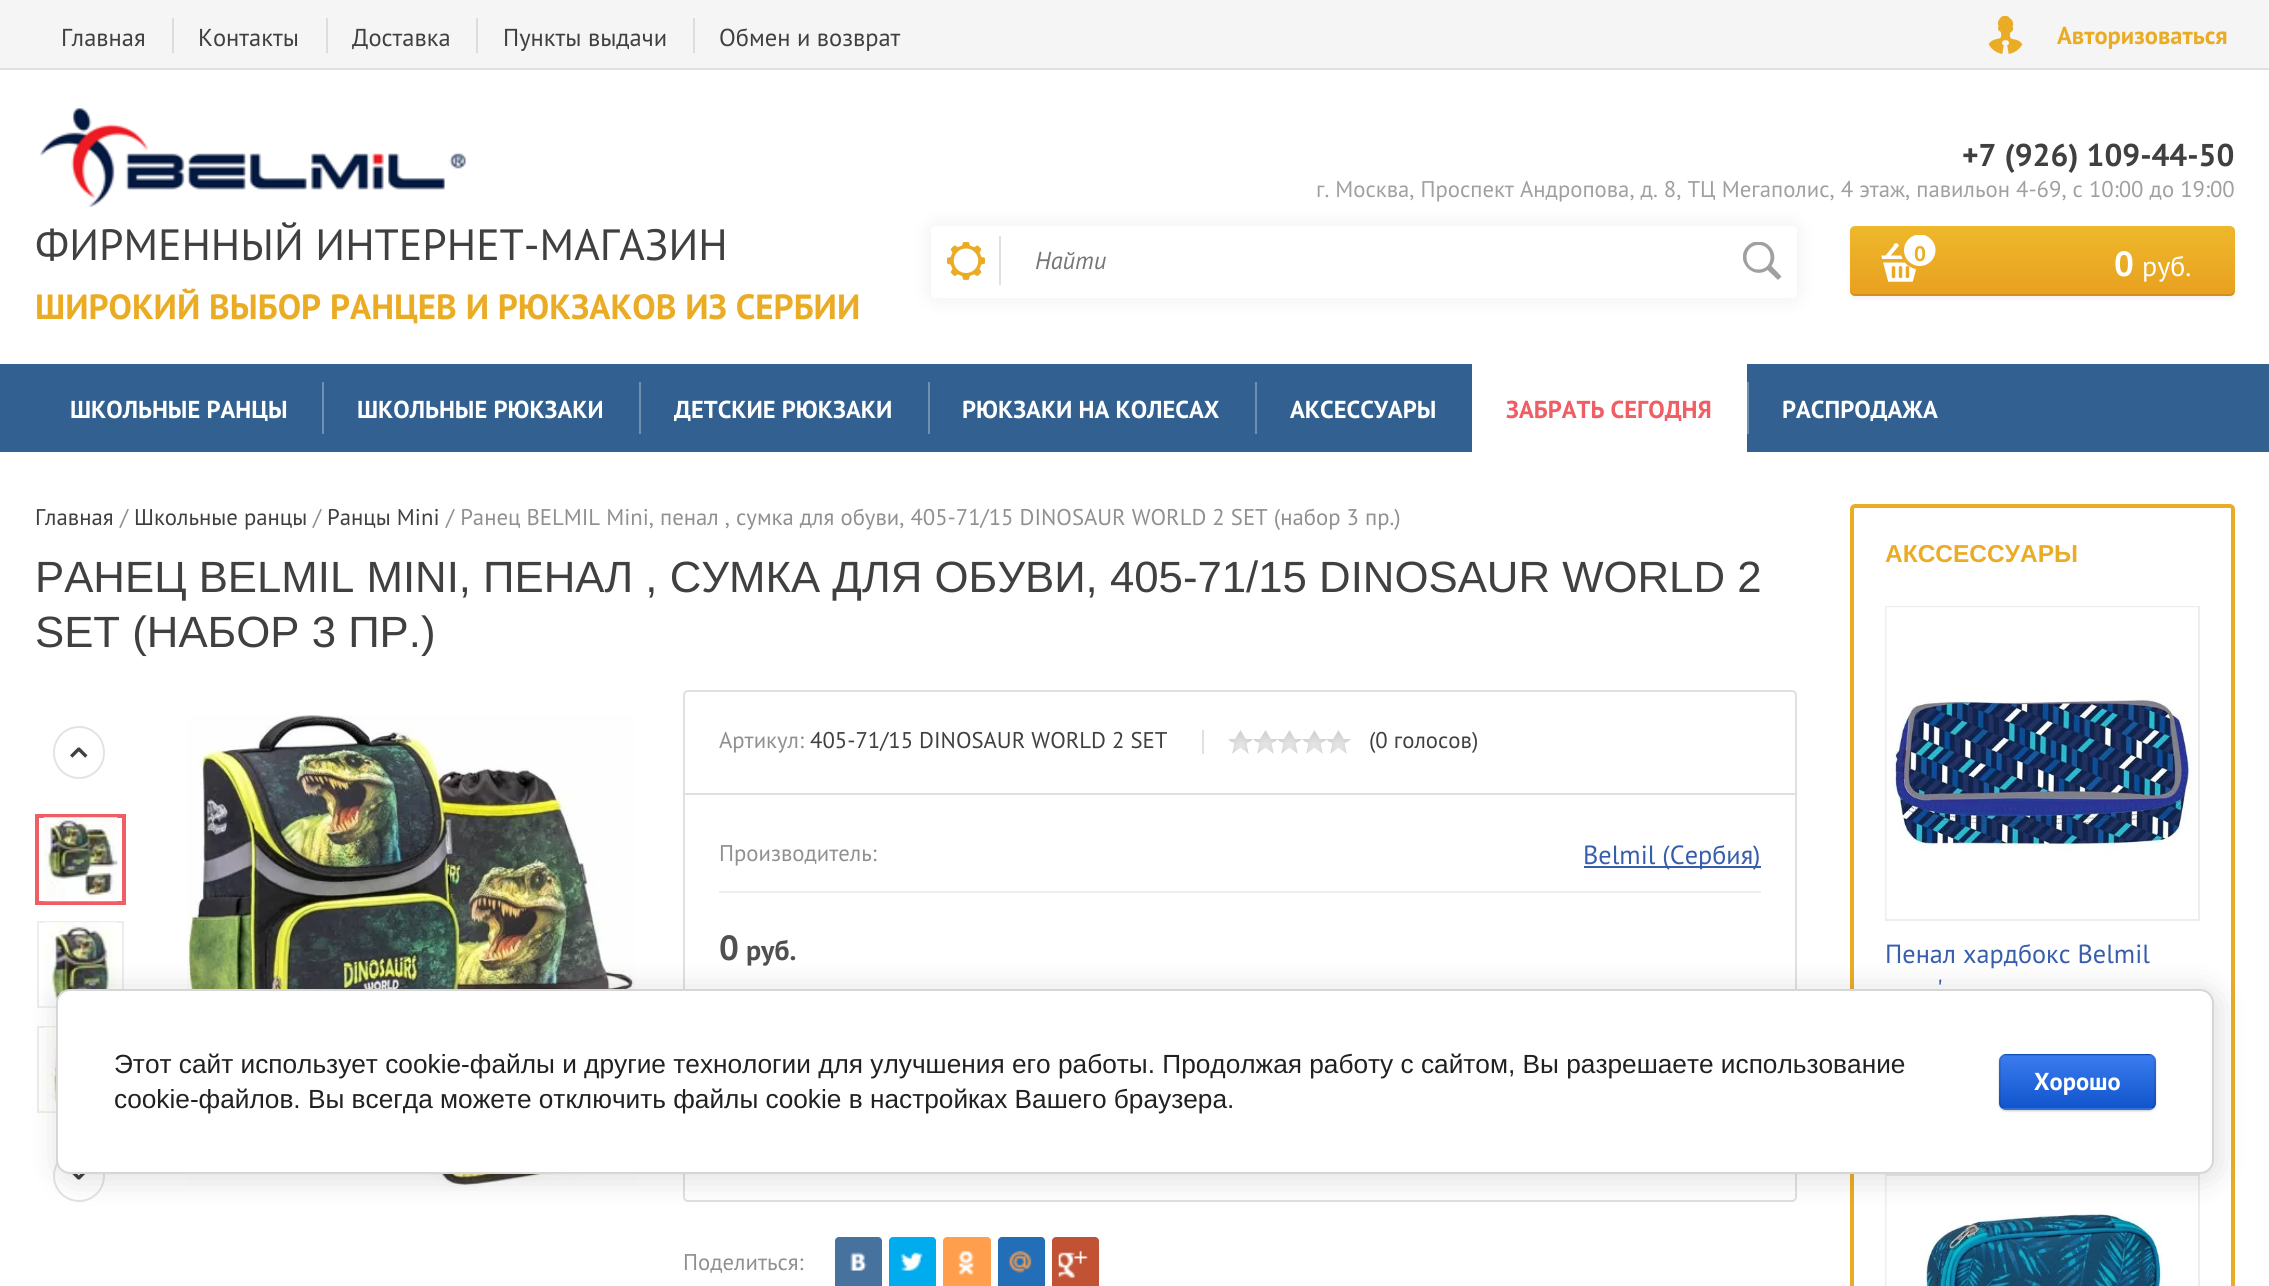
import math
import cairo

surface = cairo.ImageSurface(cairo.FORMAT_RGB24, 2269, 1286)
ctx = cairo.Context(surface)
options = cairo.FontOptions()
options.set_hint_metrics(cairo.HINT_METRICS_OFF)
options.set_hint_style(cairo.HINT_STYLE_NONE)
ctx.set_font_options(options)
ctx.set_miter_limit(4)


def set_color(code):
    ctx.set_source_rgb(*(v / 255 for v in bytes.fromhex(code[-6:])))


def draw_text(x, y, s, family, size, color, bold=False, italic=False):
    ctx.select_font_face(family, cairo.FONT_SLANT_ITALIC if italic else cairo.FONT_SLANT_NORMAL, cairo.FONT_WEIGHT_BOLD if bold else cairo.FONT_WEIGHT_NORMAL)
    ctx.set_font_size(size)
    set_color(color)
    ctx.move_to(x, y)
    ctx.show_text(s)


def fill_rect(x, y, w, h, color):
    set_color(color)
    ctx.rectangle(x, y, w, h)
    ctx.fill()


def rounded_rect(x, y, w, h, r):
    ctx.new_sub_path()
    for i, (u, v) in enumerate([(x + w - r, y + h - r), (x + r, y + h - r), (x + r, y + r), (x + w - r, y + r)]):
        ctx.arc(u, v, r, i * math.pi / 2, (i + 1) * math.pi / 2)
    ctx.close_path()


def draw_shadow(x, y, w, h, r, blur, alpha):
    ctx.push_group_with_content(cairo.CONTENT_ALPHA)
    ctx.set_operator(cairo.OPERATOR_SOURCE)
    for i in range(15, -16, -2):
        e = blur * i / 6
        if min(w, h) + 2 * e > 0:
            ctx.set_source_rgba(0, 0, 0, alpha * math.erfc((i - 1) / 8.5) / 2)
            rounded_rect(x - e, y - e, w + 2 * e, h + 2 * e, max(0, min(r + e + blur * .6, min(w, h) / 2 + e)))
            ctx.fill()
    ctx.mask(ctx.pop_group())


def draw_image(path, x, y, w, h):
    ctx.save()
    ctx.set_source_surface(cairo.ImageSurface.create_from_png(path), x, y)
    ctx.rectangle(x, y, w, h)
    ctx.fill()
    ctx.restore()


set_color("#ffffff")
ctx.paint()
fill_rect(0, 0, 2269, 68, "#f5f5f5")
fill_rect(0, 68, 2269, 2, "#e0e0e0")
draw_text(61, 46, "Главная", "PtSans", 24.5, "#404040")
fill_rect(172, 18, 2, 35, "#dddddd")
draw_text(198, 46, "Контакты", "PtSans", 24.5, "#404040")
fill_rect(326, 18, 2, 35, "#dddddd")
draw_text(352, 46, "Доставка", "PtSans", 24.5, "#404040")
fill_rect(476, 18, 2, 35, "#dddddd")
draw_text(503, 46, "Пункты выдачи", "PtSans", 24.5, "#404040")
fill_rect(693, 18, 2, 35, "#dddddd")
draw_text(719, 46, "Обмен и возврат", "PtSans", 24.5, "#404040")
draw_image("assets/img1.png", 1988, 16, 35, 38)
draw_text(2057, 44, "Авторизоваться", "PtSans", 24.5, "#ebac25", bold=True)
draw_image("assets/img2.png", 40, 108, 426, 100)
draw_text(35, 260, "ФИРМЕННЫЙ ИНТЕРНЕТ-МАГАЗИН", "PtSans", 43.75, "#404040")
draw_text(35, 319, "ШИРОКИЙ ВЫБОР РАНЦЕВ И РЮКЗАКОВ ИЗ СЕРБИИ", "PtSans", 35, "#ebac25", bold=True)
draw_text(1962, 166, "+7 (926) 109-44-50", "PtSans", 31.5, "#404040", bold=True)
draw_text(1316, 197, "г. Москва, Проспект Андропова, д. 8, ТЦ Мегаполис, 4 этаж, павильон 4-69, с 10:00 до 19:00", "PtSans", 22.75, "#a0a0a0")
set_color("#000000")
draw_shadow(931, 226, 866, 72, 5, 12, 0.07)
set_color("#ffffff")
rounded_rect(931, 226, 866, 72, 5)
ctx.fill()
draw_image("assets/img3.png", 947, 242, 38, 38)
fill_rect(999, 236, 2, 49, "#e0e0e0")
draw_text(1035, 269, "Найти", "PtSans", 24.5, "#757575", italic=True)
ctx.save()
ctx.rectangle(1743, 242, 39, 38)
ctx.clip()
set_color("#a0a0a0")
ctx.set_fill_rule(cairo.FILL_RULE_EVEN_ODD)
ctx.new_path()
ctx.move_to(1781.5, 276.5)
ctx.line_to(1778, 280)
ctx.line_to(1767.5, 270)
ctx.curve_to(1752.5, 280.5, 1734, 260, 1747.5, 246)
ctx.curve_to(1761.5, 232.5, 1782, 251, 1771.5, 266)
ctx.close_path()
ctx.move_to(1758.5, 245)
ctx.curve_to(1742.5, 245, 1742.5, 269.5, 1758.5, 269.5)
ctx.curve_to(1774.5, 269.5, 1774.5, 245, 1758.5, 245)
ctx.close_path()
ctx.fill()
ctx.restore()
set_color("#000000")
draw_shadow(1850, 229, 385, 70, 5, 2, 0.05)
gradient = cairo.LinearGradient(2042, 296, 2042, 226)
gradient.add_color_stop_rgba(0, 0.91, 0.627, 0.122, 1)
gradient.add_color_stop_rgba(1, 0.933, 0.722, 0.169, 1)
ctx.set_source(gradient)
rounded_rect(1850, 226, 385, 70, 5)
ctx.fill()
ctx.set_source_rgba(0, 0, 0, 0.1)
ctx.new_path()
ctx.move_to(1850, 289)
ctx.curve_to(1850, 292, 1851, 296, 1855, 296)
ctx.line_to(2230, 296)
ctx.curve_to(2234, 296, 2235, 292, 2235, 289)
ctx.curve_to(2235, 292, 2232, 294, 2230, 294)
ctx.line_to(1855, 294)
ctx.curve_to(1852, 294, 1850, 292, 1850, 289)
ctx.close_path()
ctx.fill()
draw_image("assets/img4.png", 1881, 235, 55, 47)
draw_text(1914, 261, "0", "PtSans", 21, "#ebac25", bold=True)
draw_text(2114, 276, "0", "PtSans", 35, "#ffffff", bold=True)
draw_text(2142, 276, "руб.", "PtSans", 28, "#ffffff")
fill_rect(0, 364, 2269, 88, "#326090")
draw_text(70, 418, "ШКОЛЬНЫЕ РАНЦЫ", "PtSans", 24.5, "#ffffff", bold=True)
fill_rect(322, 382, 2, 52, "#7090b1")
draw_text(357, 418, "ШКОЛЬНЫЕ РЮКЗАКИ", "PtSans", 24.5, "#ffffff", bold=True)
fill_rect(639, 382, 2, 52, "#7090b1")
draw_text(674, 418, "ДЕТСКИЕ РЮКЗАКИ", "PtSans", 24.5, "#ffffff", bold=True)
fill_rect(928, 382, 2, 52, "#7090b1")
draw_text(962, 418, "РЮКЗАКИ НА КОЛЕСАХ", "PtSans", 24.5, "#ffffff", bold=True)
fill_rect(1255, 382, 2, 52, "#7090b1")
draw_text(1290, 418, "АКСЕССУАРЫ", "PtSans", 24.5, "#ffffff", bold=True)
fill_rect(1472, 364, 275, 88, "#ffffff")
draw_text(1506, 418, "ЗАБРАТЬ СЕГОДНЯ", "PtSans", 24.5, "#f05e65", bold=True)
fill_rect(1747, 382, 2, 52, "#7090b1")
draw_text(1782, 418, "РАСПРОДАЖА", "PtSans", 24.5, "#ffffff", bold=True)
draw_text(35, 525, "Главная", "PtSans", 22.75, "#404040")
draw_text(120, 525, "/", "PtSans", 22.75, "#909090")
draw_text(134, 525, "Школьные ранцы", "PtSans", 22.75, "#404040")
draw_text(313, 525, "/", "PtSans", 22.75, "#909090")
draw_text(327, 525, "Ранцы Mini", "PtSans", 22.75, "#404040")
draw_text(446, 525, "/ Ранец BELMIL Mini, пенал , сумка для обуви, 405-71/15 DINOSAUR WORLD 2 SET (набор 3 пр.)", "PtSans", 22.75, "#909090")
draw_text(35, 592, "РАНЕЦ BELMIL MINI, ПЕНАЛ , СУМКА ДЛЯ ОБУВИ, 405-71/15 DINOSAUR WORLD 2", "Liberation Sans", 43.75, "#404040")
draw_text(35, 647, "SET (НАБОР 3 ПР.)", "Liberation Sans", 43.75, "#404040")
rounded_rect(54, 727, 50, 51, 25)
set_color("#e3e3e3")
ctx.stroke()
draw_image("assets/img5.png", 70, 747, 18, 11)
ctx.arc(79, 1176, 25, 0, 2 * math.pi)
ctx.stroke()
draw_image("assets/img6.png", 72, 1174, 13, 6)
ctx.rectangle(38, 817, 85, 85)
set_color("#f05e65")
ctx.stroke()
draw_image("assets/img7.png", 43, 817, 75, 85)
ctx.rectangle(36, 815, 89, 89)
ctx.stroke()
ctx.rectangle(38, 922, 85, 85)
set_color("#ededed")
ctx.stroke()
draw_image("assets/img8.png", 44, 922, 73, 85)
ctx.rectangle(38, 1027, 85, 85)
ctx.stroke()
draw_image("assets/img9.png", 44, 1027, 12, 85)
draw_image("assets/img10.png", 187, 715, 448, 473)
rounded_rect(684, 691, 1112, 510, 4)
set_color("#e0e0e0")
ctx.stroke()
fill_rect(684, 793, 1112, 2, "#e0e0e0")
fill_rect(1202, 730, 2, 24, "#e0e0e0")
draw_text(719, 748, "Артикул:", "PtSans", 22.75, "#909090")
draw_text(810, 748, "405-71/15 DINOSAUR WORLD 2 SET", "PtSans", 22.75, "#404040")
draw_image("assets/img11.png", 1228, 729, 123, 26)
draw_text(1369, 748, "(0 голосов)", "PtSans", 22.75, "#404040")
fill_rect(719, 891, 1042, 2, "#efefef")
draw_text(719, 861, "Производитель:", "PtSans", 22.75, "#909090")
fill_rect(1584, 866, 177, 2, "#375eac")
draw_text(1583, 864, "Belmil (Сербия)", "PtSans", 26.25, "#375eac")
draw_text(719, 960, "0", "PtSans", 35, "#505050", bold=True)
draw_text(746, 960, "руб.", "PtSans", 28, "#505050", bold=True)
draw_text(683, 1270, "Поделиться:", "PtSans", 22.75, "#909090")
set_color("#48729e")
rounded_rect(835, 1237, 47, 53, 4)
ctx.fill()
draw_image("assets/img12.png", 850, 1252, 17, 19)
set_color("#00aced")
rounded_rect(889, 1237, 47, 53, 4)
ctx.fill()
draw_image("assets/img13.png", 900, 1252, 23, 19)
set_color("#ff9f4d")
rounded_rect(943, 1237, 48, 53, 4)
ctx.fill()
draw_image("assets/img14.png", 958, 1250, 16, 25)
set_color("#226eb7")
rounded_rect(998, 1237, 47, 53, 4)
ctx.fill()
draw_image("assets/img15.png", 1009, 1250, 23, 23)
set_color("#c25234")
rounded_rect(1052, 1237, 47, 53, 4)
ctx.fill()
draw_image("assets/img16.png", 1058, 1250, 30, 28)
rounded_rect(1852, 506, 381, 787, 3)
set_color("#ebac25")
ctx.set_line_width(4)
ctx.stroke()
draw_text(1885, 562, "АКССЕССУАРЫ", "Liberation Sans", 24.5, "#ebac25", bold=True)
ctx.rectangle(1886, 607, 313, 313)
set_color("#ededed")
ctx.set_line_width(2)
ctx.stroke()
draw_image("assets/img17.png", 1886, 607, 312, 312)
draw_text(1885, 963, "Пенал хардбокс Belmil", "PtSans", 26.25, "#375eac")
draw_text(1937, 998, "'", "PtSans", 26.25, "#375eac")
ctx.rectangle(1886, 1175, 313, 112)
set_color("#ededed")
ctx.stroke()
draw_image("assets/img18.png", 1886, 1176, 277, 110)
set_color("#000000")
draw_shadow(60, 992, 2157, 186, 14, 16, 0.14)
set_color("#ffffff")
rounded_rect(57, 990, 2156, 183, 13)
ctx.fill_preserve()
set_color("#d6d6d6")
ctx.stroke()
draw_text(114, 1073, "Этот сайт использует cookie-файлы и другие технологии для улучшения его работы. Продолжая работу с сайтом, Вы разрешаете использование", "Liberation Sans", 26.25, "#212121")
draw_text(114, 1108, "cookie-файлов. Вы всегда можете отключить файлы cookie в настройках Вашего браузера.", "Liberation Sans", 26.25, "#212121")
set_color("#000000")
draw_shadow(1999, 1055, 157, 56, 7, 1, 0.2)
ctx.save()
rounded_rect(1999, 1054, 157, 56, 7)
ctx.clip()
gradient = cairo.LinearGradient(2077, 1003, 2077, 1055)
gradient.add_color_stop_rgba(0, 0.231, 0.486, 0.937, 1)
gradient.add_color_stop_rgba(1, 0.067, 0.333, 0.8, 1)
ctx.set_source(gradient)
ctx.rectangle(1999, 1054, 157, 1)
ctx.fill()
gradient = cairo.LinearGradient(2077, 1055, 2077, 1108)
gradient.add_color_stop_rgba(0, 0.231, 0.486, 0.937, 1)
gradient.add_color_stop_rgba(1, 0.067, 0.333, 0.8, 1)
ctx.set_source(gradient)
ctx.rectangle(1999, 1055, 157, 53)
ctx.fill()
gradient = cairo.LinearGradient(2077, 1108, 2077, 1160)
gradient.add_color_stop_rgba(0, 0.231, 0.486, 0.937, 1)
gradient.add_color_stop_rgba(1, 0.067, 0.333, 0.8, 1)
ctx.set_source(gradient)
ctx.rectangle(1999, 1108, 157, 2)
ctx.fill()
ctx.restore()
rounded_rect(2000, 1055, 155, 54, 6)
ctx.set_source_rgba(0, 0, 0, 0.1)
ctx.stroke()
draw_text(2034, 1090, "Хорошо", "PtSans", 24.5, "#ffffff", bold=True)
surface.write_to_png("output.png")
